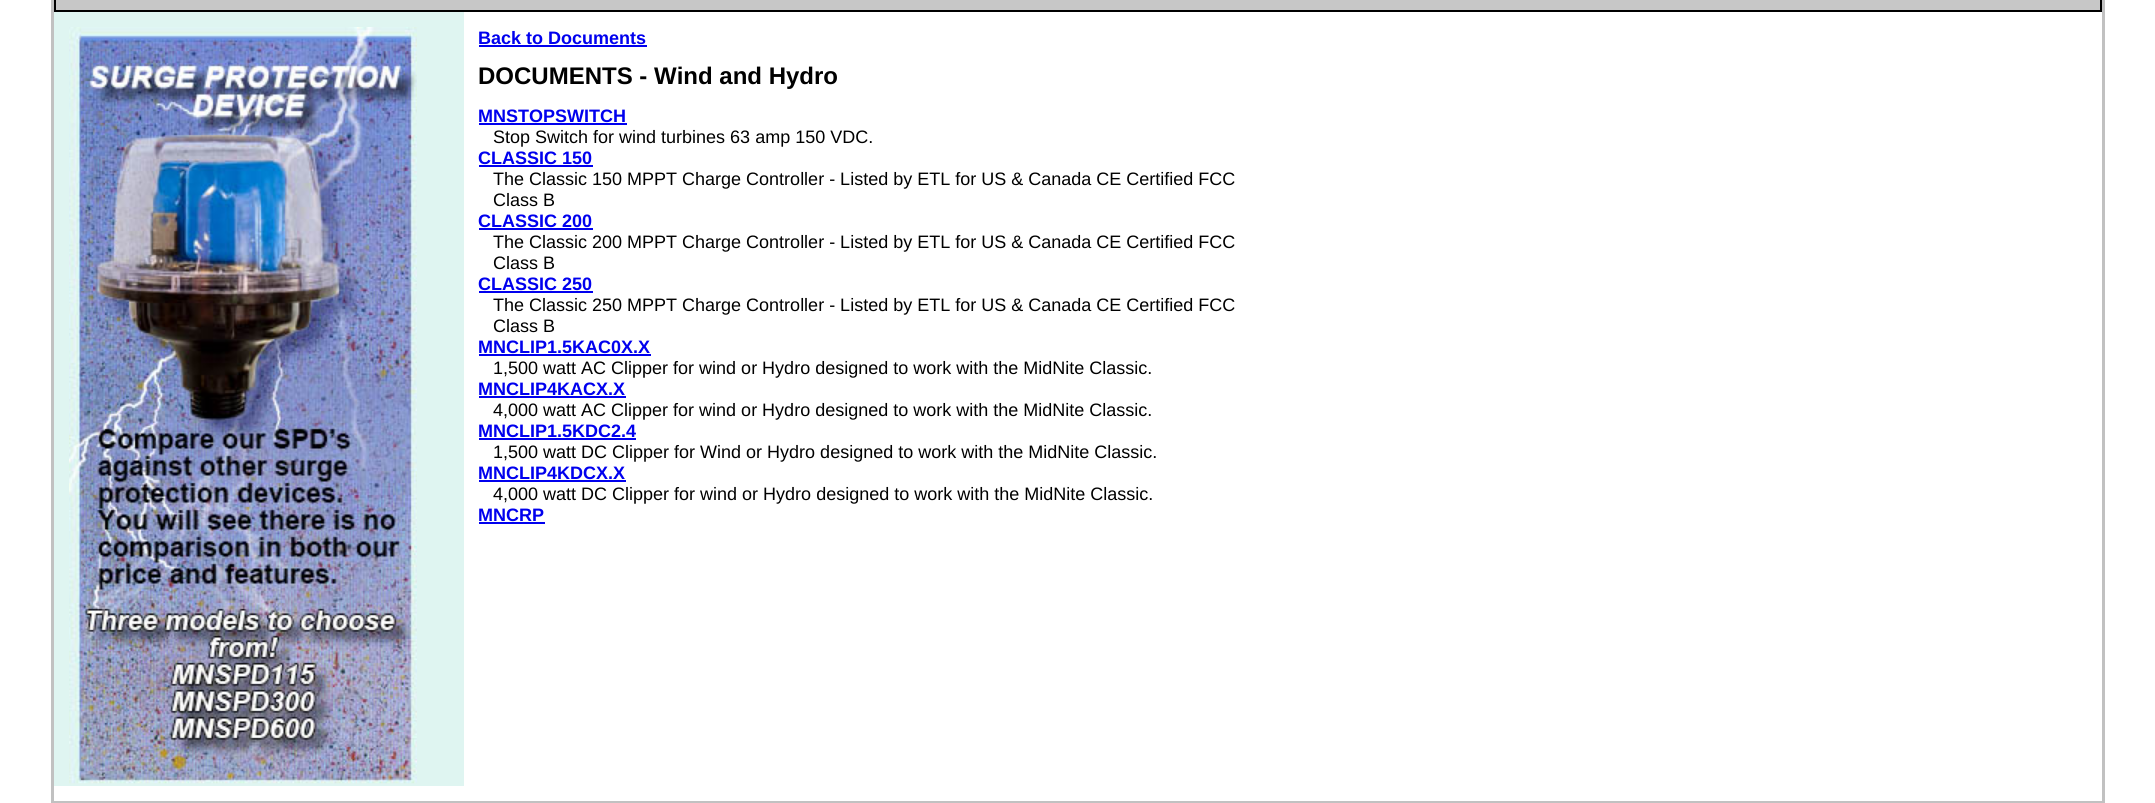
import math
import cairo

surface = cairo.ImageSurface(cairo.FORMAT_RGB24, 2155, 803)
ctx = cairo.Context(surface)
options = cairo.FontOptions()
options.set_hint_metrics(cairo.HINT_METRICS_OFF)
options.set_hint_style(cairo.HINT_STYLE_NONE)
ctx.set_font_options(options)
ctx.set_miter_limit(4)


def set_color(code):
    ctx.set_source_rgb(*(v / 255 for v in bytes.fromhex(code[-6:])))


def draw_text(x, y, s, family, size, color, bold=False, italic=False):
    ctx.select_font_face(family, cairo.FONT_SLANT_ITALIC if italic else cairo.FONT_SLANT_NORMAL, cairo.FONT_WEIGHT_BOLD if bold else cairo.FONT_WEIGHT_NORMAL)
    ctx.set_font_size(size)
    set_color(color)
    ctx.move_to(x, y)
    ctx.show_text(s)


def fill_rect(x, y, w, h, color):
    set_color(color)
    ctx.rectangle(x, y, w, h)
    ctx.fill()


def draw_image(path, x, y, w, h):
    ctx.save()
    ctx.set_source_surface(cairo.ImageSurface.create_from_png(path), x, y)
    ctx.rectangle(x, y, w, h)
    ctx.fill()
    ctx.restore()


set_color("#ffffff")
ctx.paint()
ctx.rectangle(52.5, -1.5, 2051, 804)
set_color("#c1c1c1")
ctx.set_line_width(3)
ctx.stroke()
set_color("#c7c7c7")
ctx.rectangle(55, -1, 2046, 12)
ctx.fill_preserve()
set_color("#000000")
ctx.set_line_width(2)
ctx.stroke()
fill_rect(54, 12, 410, 774, "#dff5f1")
draw_image("assets/img1.png", 69, 27, 348, 757)
draw_text(478, 44, "Back to Documents", "Liberation Sans", 18, "#0000ee", bold=True)
fill_rect(479, 45, 168, 2, "#0000ee")
draw_text(478, 84, "DOCUMENTS - Wind and Hydro", "Liberation Sans", 24, "#000000", bold=True)
draw_text(478, 122, "MNSTOPSWITCH", "Liberation Sans", 18, "#0000ee", bold=True)
fill_rect(479, 123, 148, 2, "#0000ee")
draw_text(493, 143, "Stop Switch for wind turbines 63 amp 150 VDC.", "Liberation Sans", 18, "#000000")
draw_text(478, 164, "CLASSIC 150", "Liberation Sans", 18, "#0000ee", bold=True)
fill_rect(479, 165, 114, 2, "#0000ee")
draw_text(493, 185, "The Classic 150 MPPT Charge Controller - Listed by ETL for US & Canada CE Certified FCC", "Liberation Sans", 18, "#000000")
draw_text(493, 206, "Class B", "Liberation Sans", 18, "#000000")
draw_text(478, 227, "CLASSIC 200", "Liberation Sans", 18, "#0000ee", bold=True)
fill_rect(479, 228, 114, 2, "#0000ee")
draw_text(493, 248, "The Classic 200 MPPT Charge Controller - Listed by ETL for US & Canada CE Certified FCC", "Liberation Sans", 18, "#000000")
draw_text(493, 269, "Class B", "Liberation Sans", 18, "#000000")
draw_text(478, 290, "CLASSIC 250", "Liberation Sans", 18, "#0000ee", bold=True)
fill_rect(479, 291, 114, 2, "#0000ee")
draw_text(493, 311, "The Classic 250 MPPT Charge Controller - Listed by ETL for US & Canada CE Certified FCC", "Liberation Sans", 18, "#000000")
draw_text(493, 332, "Class B", "Liberation Sans", 18, "#000000")
draw_text(478, 353, "MNCLIP1.5KAC0X.X", "Liberation Sans", 18, "#0000ee", bold=True)
fill_rect(479, 354, 172, 2, "#0000ee")
draw_text(493, 374, "1,500 watt AC Clipper for wind or Hydro designed to work with the MidNite Classic.", "Liberation Sans", 18, "#000000")
draw_text(478, 395, "MNCLIP4KACX.X", "Liberation Sans", 18, "#0000ee", bold=True)
fill_rect(479, 396, 147, 2, "#0000ee")
draw_text(493, 416, "4,000 watt AC Clipper for wind or Hydro designed to work with the MidNite Classic.", "Liberation Sans", 18, "#000000")
draw_text(478, 437, "MNCLIP1.5KDC2.4", "Liberation Sans", 18, "#0000ee", bold=True)
fill_rect(479, 438, 157, 2, "#0000ee")
draw_text(493, 458, "1,500 watt DC Clipper for Wind or Hydro designed to work with the MidNite Classic.", "Liberation Sans", 18, "#000000")
draw_text(478, 479, "MNCLIP4KDCX.X", "Liberation Sans", 18, "#0000ee", bold=True)
fill_rect(479, 480, 147, 2, "#0000ee")
draw_text(493, 500, "4,000 watt DC Clipper for wind or Hydro designed to work with the MidNite Classic.", "Liberation Sans", 18, "#000000")
draw_text(478, 521, "MNCRP", "Liberation Sans", 18, "#0000ee", bold=True)
fill_rect(479, 522, 66, 2, "#0000ee")
surface.write_to_png("output.png")
